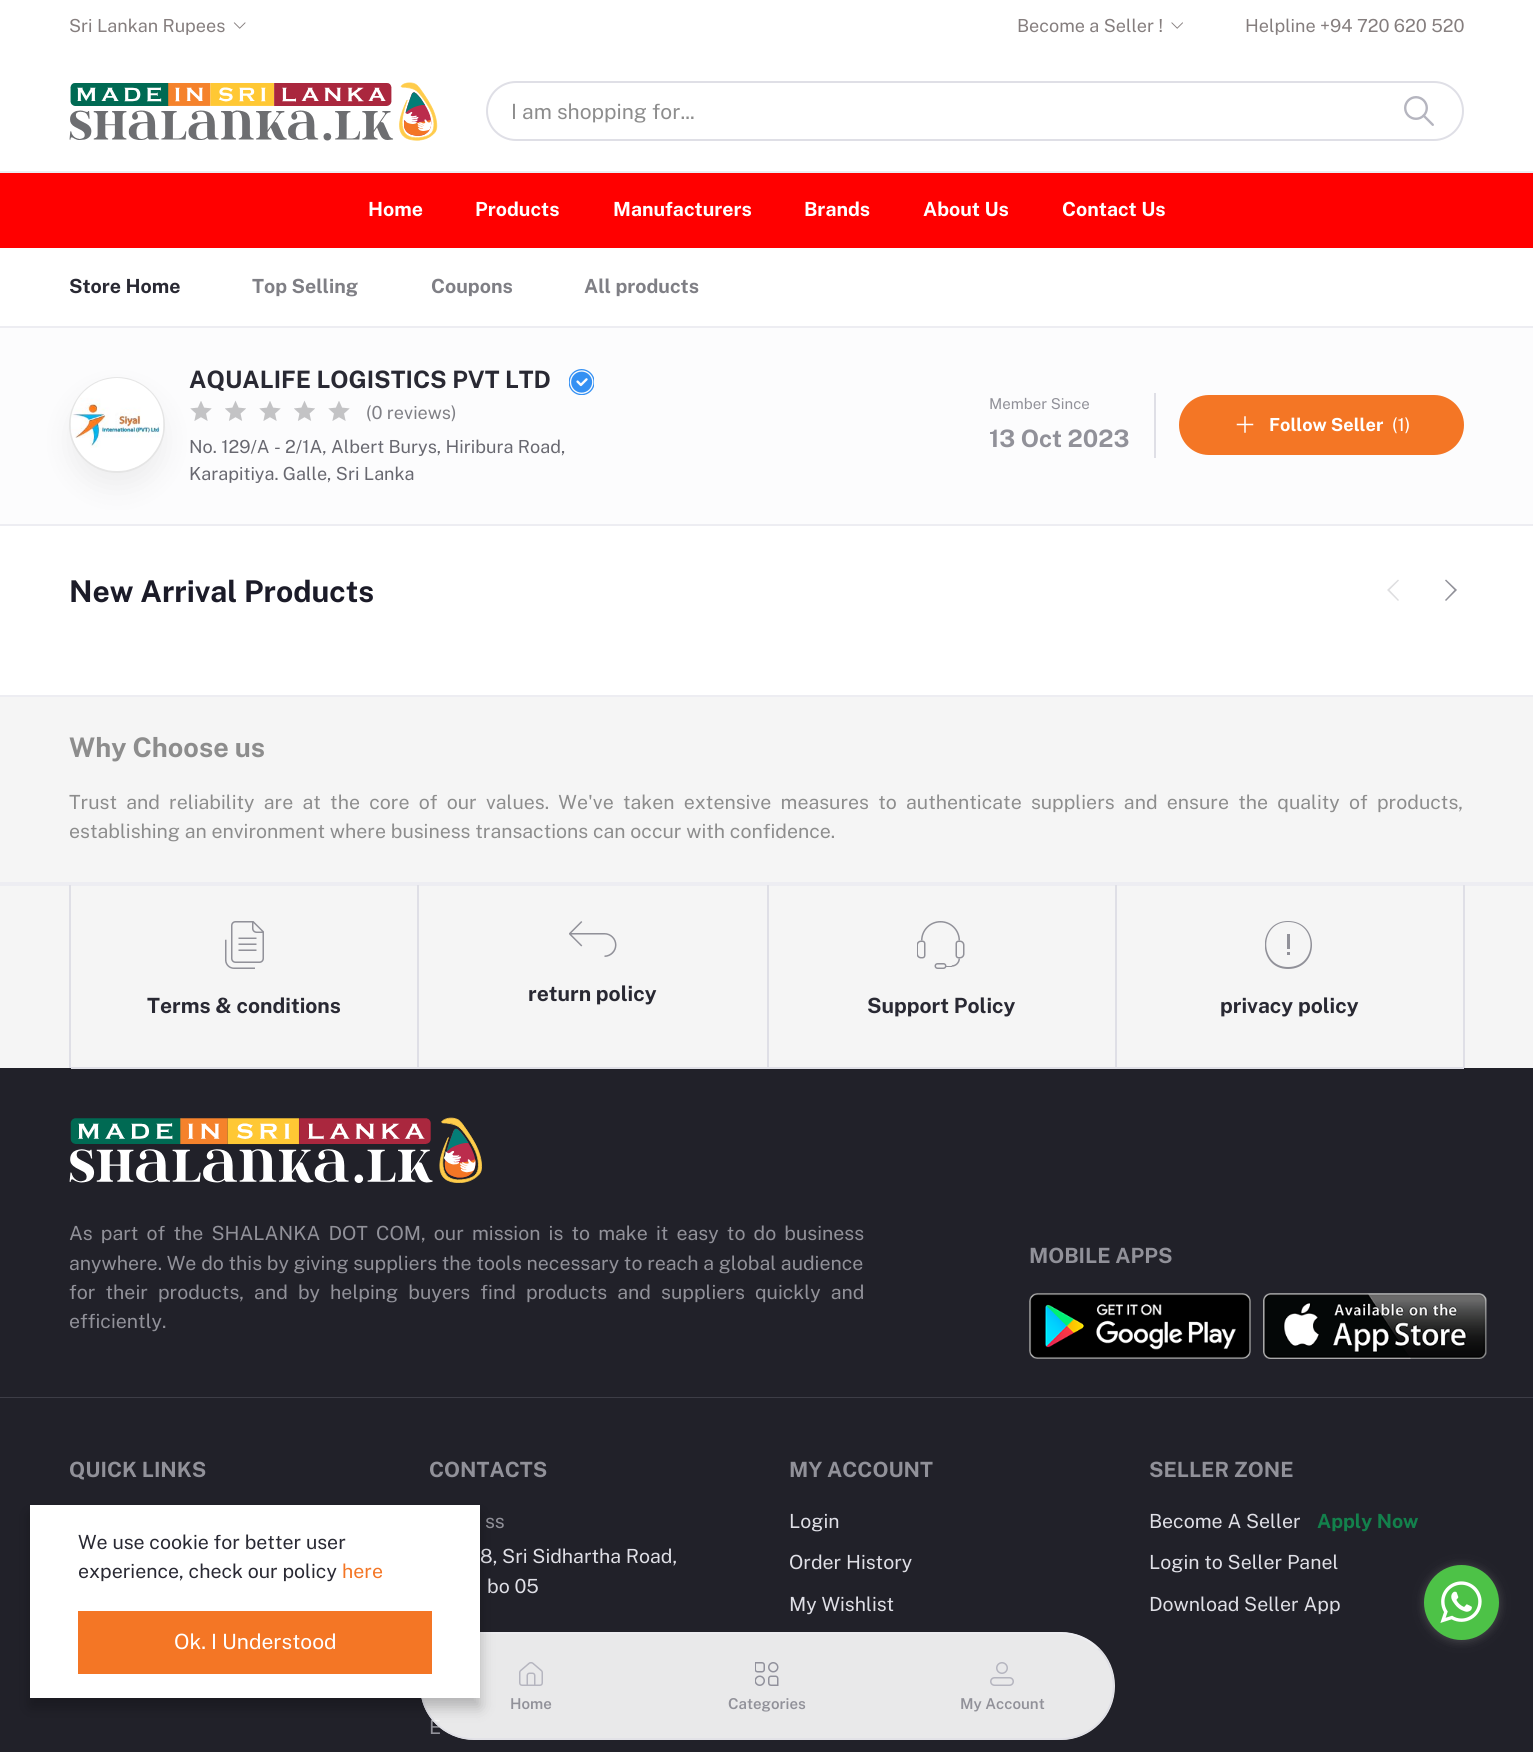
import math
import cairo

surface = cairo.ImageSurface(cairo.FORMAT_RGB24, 1533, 1752)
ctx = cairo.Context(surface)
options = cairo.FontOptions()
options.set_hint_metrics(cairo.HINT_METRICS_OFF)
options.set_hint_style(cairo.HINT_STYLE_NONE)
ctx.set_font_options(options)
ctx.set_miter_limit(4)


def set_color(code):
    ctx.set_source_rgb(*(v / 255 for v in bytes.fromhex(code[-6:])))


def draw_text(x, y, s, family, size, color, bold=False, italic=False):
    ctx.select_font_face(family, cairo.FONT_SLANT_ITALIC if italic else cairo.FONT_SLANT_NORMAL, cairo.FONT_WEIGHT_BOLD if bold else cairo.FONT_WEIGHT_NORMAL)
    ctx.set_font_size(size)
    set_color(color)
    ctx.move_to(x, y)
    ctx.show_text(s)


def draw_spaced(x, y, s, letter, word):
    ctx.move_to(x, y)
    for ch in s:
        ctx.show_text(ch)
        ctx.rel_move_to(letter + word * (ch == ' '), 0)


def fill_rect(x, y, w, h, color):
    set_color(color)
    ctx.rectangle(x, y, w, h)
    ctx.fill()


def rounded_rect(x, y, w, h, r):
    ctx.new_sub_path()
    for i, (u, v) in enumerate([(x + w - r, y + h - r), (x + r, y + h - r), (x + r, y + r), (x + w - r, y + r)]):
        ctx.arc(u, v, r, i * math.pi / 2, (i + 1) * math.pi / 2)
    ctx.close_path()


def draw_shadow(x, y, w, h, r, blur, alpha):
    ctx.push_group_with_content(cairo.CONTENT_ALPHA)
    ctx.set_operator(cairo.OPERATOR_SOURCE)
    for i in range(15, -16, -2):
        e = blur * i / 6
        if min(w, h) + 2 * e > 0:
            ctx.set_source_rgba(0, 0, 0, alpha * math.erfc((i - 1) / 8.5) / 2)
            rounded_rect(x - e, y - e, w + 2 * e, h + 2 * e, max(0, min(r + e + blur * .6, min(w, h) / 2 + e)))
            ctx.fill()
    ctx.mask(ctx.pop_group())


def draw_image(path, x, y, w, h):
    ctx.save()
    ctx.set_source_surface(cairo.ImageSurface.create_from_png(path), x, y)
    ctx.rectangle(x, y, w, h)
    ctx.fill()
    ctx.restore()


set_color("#ffffff")
ctx.paint()
draw_text(69, 32, "Sri Lankan Rupees", "Public Sans", 18, "#857e7e")
draw_image("assets/img1.png", 233, 22, 13, 7)
draw_text(1017, 32, "Become a Seller !", "Public Sans", 18, "#857e7e")
draw_image("assets/img2.png", 1171, 22, 12, 7)
draw_text(1245, 32, "Helpline +94 720 620 520", "Public Sans", 18, "#857e7e")
fill_rect(0, 171, 1533, 2, "#ededf2")
draw_image("assets/img3.png", 69, 82, 369, 59)
rounded_rect(487, 82, 976, 58, 29)
set_color("#dfdfe6")
ctx.stroke()
draw_text(511, 119, "I am shopping for...", "Public Sans", 21, "#8d8d8d")
draw_image("assets/img4.png", 1404, 96, 30, 30)
fill_rect(0, 173, 1533, 75, "#ff0000")
draw_text(368, 216, "Home", "Public Sans", 19.5, "#ffffff", bold=True)
draw_text(475, 216, "Products", "Public Sans", 19.5, "#ffffff", bold=True)
draw_text(613, 216, "Manufacturers", "Public Sans", 19.5, "#ffffff", bold=True)
draw_text(804, 216, "Brands", "Public Sans", 19.5, "#ffffff", bold=True)
draw_text(923, 216, "About Us", "Public Sans", 19.5, "#ffffff", bold=True)
draw_text(1062, 216, "Contact Us", "Public Sans", 19.5, "#ffffff", bold=True)
draw_text(69, 293, "Store Home", "Public Sans", 19.5, "#292933", bold=True)
draw_text(252, 293, "Top Selling", "Public Sans", 19.5, "#7f7f85", bold=True)
draw_text(431, 293, "Coupons", "Public Sans", 19.5, "#7f7f85", bold=True)
draw_text(584, 293, "All products", "Public Sans", 19.5, "#7f7f85", bold=True)
fill_rect(0, 328, 1533, 196, "#fcfcfd")
fill_rect(0, 326, 1533, 2, "#ededf2")
fill_rect(0, 524, 1533, 2, "#ededf2")
draw_image("assets/img7.png", 190, 401, 22, 20)
set_color("#000000")
draw_shadow(69, 392, 96, 96, 48, 15, 0.06)
ctx.arc(117, 425, 47, 0, 2 * math.pi)
set_color("#e5e5e5")
ctx.stroke()
draw_image("assets/img5.png", 70, 378, 94, 93)
draw_text(189, 388, "AQUALIFE LOGISTICS PVT LTD", "Public Sans", 24, "#292933", bold=True)
draw_image("assets/img6.png", 569, 369, 25, 26)
draw_image("assets/img8.png", 225, 400, 21, 21)
draw_image("assets/img7.png", 259, 401, 22, 20)
draw_image("assets/img8.png", 294, 400, 21, 21)
draw_image("assets/img7.png", 328, 401, 22, 20)
draw_text(366, 419, "(0 reviews)", "Public Sans", 18, "#7f7f85")
draw_text(189, 453, "No. 129/A - 2/1A, Albert Burys, Hiribura Road,", "Public Sans", 18, "#686870")
draw_text(189, 480, "Karapitiya. Galle, Sri Lanka", "Public Sans", 18, "#686870")
fill_rect(1154, 393, 2, 65, "#dfdfe6")
draw_text(989, 409, "Member Since", "Public Sans", 15, "#919199")
draw_text(989, 447, "13 Oct 2023", "Public Sans", 24, "#919199", bold=True)
set_color("#f47625")
rounded_rect(1180, 396, 283, 58, 29)
ctx.fill_preserve()
ctx.stroke()
draw_image("assets/img9.png", 1236, 416, 18, 17)
draw_text(1269, 431, "Follow Seller", "Public Sans", 18, "#ffffff", bold=True)
draw_text(1392, 431, "(1)", "Public Sans", 18, "#ffffff")
draw_text(69, 602, "New Arrival Products", "Public Sans", 30, "#1b1b28", bold=True)
set_color("#dedee0")
ctx.new_path()
ctx.move_to(1398, 579.5)
ctx.line_to(1387, 590)
ctx.line_to(1398, 601)
ctx.line_to(1399, 600)
ctx.line_to(1389.5, 590)
ctx.line_to(1399, 580.5)
ctx.close_path()
ctx.fill()
set_color("#919199")
ctx.new_path()
ctx.move_to(1446, 579.5)
ctx.line_to(1445, 580.5)
ctx.line_to(1454.5, 590)
ctx.line_to(1445, 600)
ctx.line_to(1446, 601)
ctx.line_to(1457, 590)
ctx.close_path()
ctx.fill()
fill_rect(0, 697, 1533, 185, "#f5f5f5")
fill_rect(0, 695, 1533, 2, "#ededf2")
fill_rect(0, 882, 1533, 4, "#ededf2")
draw_text(69, 757, "Why Choose us", "Public Sans", 27, "#8d8d8d", bold=True)
ctx.select_font_face("Public Sans")
ctx.set_font_size(19.5)
draw_spaced(69, 809, "Trust and reliability are at the core of our values. We've taken extensive measures to authenticate suppliers and ensure the quality of products,", 0, 4.5)
draw_text(69, 838, "establishing an environment where business transactions can occur with confidence.", "Public Sans", 19.5, "#8d8d8d")
fill_rect(0, 886, 1533, 182, "#f5f5f5")
fill_rect(69, 885, 2, 183, "#dfdfe6")
fill_rect(417, 885, 2, 183, "#dfdfe6")
fill_rect(0, 1068, 1533, 329, "#212129")
fill_rect(71, 1067, 348, 2, "#dfdfe6")
draw_image("assets/img10.png", 225, 921, 39, 48)
draw_text(147, 1013, "Terms & conditions", "Public Sans", 21, "#292933", bold=True)
fill_rect(767, 885, 2, 183, "#dfdfe6")
fill_rect(419, 1067, 349, 2, "#dfdfe6")
draw_image("assets/img11.png", 569, 921, 48, 36)
draw_text(528, 1001, "return policy", "Public Sans", 21, "#292933", bold=True)
fill_rect(1115, 885, 2, 183, "#dfdfe6")
fill_rect(768, 1067, 348, 2, "#dfdfe6")
draw_image("assets/img12.png", 917, 921, 48, 48)
draw_text(867, 1013, "Support Policy", "Public Sans", 21, "#292933", bold=True)
fill_rect(1463, 885, 2, 183, "#dfdfe6")
fill_rect(1116, 1067, 348, 2, "#dfdfe6")
ctx.save()
ctx.rectangle(1265, 921, 48, 48)
ctx.clip()
set_color("#919199")
ctx.new_path()
ctx.move_to(1288, 969)
ctx.curve_to(1257, 969, 1257, 921, 1288, 921)
ctx.curve_to(1320, 921, 1320, 969, 1288, 969)
ctx.close_path()
ctx.move_to(1288, 922)
ctx.curve_to(1259, 922, 1259, 967, 1288, 967)
ctx.curve_to(1318, 967, 1318, 922, 1288, 922)
ctx.close_path()
ctx.fill()
ctx.restore()
fill_rect(1287, 934, 3, 15, "#919199")
fill_rect(1287, 952, 3, 3, "#919199")
draw_text(1220, 1013, "privacy policy", "Public Sans", 21, "#292933", bold=True)
fill_rect(0, 1397, 1533, 1, "#3d3d46")
draw_image("assets/img13.png", 69, 1117, 414, 66)
ctx.select_font_face("Public Sans")
ctx.set_font_size(19.5)
set_color("#919199")
draw_spaced(69, 1240, "As part of the SHALANKA DOT COM, our mission is to make it easy to do business", 0, 3.4)
draw_text(69, 1270, "anywhere. We do this by giving suppliers the tools necessary to reach a global audience", "Public Sans", 19.5, "#919199")
draw_spaced(69, 1299, "for their products, and by helping buyers find products and suppliers quickly and", 0, 5.4)
draw_text(69, 1328, "efficiently.", "Public Sans", 19.5, "#919199")
draw_text(1029, 1263, "MOBILE APPS", "Public Sans", 21, "#919199", bold=True)
draw_image("assets/img14.png", 1029, 1293, 222, 66)
draw_image("assets/img15.png", 1263, 1293, 224, 66)
fill_rect(0, 1398, 1533, 354, "#212129")
draw_text(69, 1477, "QUICK LINKS", "Public Sans", 21, "#919199", bold=True)
draw_text(429, 1477, "CONTACTS", "Public Sans", 21, "#919199", bold=True)
draw_text(485, 1528, "ss", "Public Sans", 19.5, "#919199")
draw_text(480, 1563, "8, Sri Sidhartha Road,", "Public Sans", 19.5, "#dfdfe6")
draw_text(487, 1593, "bo 05", "Public Sans", 19.5, "#dfdfe6")
draw_text(429, 1734, "E", "Public Sans", 19.5, "#919199")
draw_text(789, 1477, "MY ACCOUNT", "Public Sans", 21, "#919199", bold=True)
draw_text(789, 1528, "Login", "Public Sans", 19.5, "#dfdfe6")
draw_text(789, 1569, "Order History", "Public Sans", 19.5, "#dfdfe6")
draw_text(789, 1611, "My Wishlist", "Public Sans", 19.5, "#dfdfe6")
draw_text(1149, 1477, "SELLER ZONE", "Public Sans", 21, "#919199", bold=True)
draw_text(1149, 1528, "Become A Seller", "Public Sans", 19.5, "#dfdfe6")
draw_text(1317, 1528, "Apply Now", "Public Sans", 19.5, "#13814c", bold=True)
draw_text(1149, 1569, "Login to Seller Panel", "Public Sans", 19.5, "#dfdfe6")
draw_text(1149, 1611, "Download Seller App", "Public Sans", 19.5, "#dfdfe6")
ctx.set_source_rgba(1, 1, 1, 0.9)
rounded_rect(420, 1632, 695, 108, 54)
ctx.fill()
ctx.new_path()
ctx.move_to(436.5, 1648.5)
ctx.curve_to(446.5, 1638.5, 460, 1633, 474, 1633)
ctx.line_to(1060.5, 1633)
ctx.curve_to(1074.5, 1633, 1088, 1638.5, 1098, 1648.5)
set_color("#ededf2")
ctx.set_line_width(1.5)
ctx.stroke()
ctx.new_path()
ctx.move_to(1098, 1648.5)
ctx.curve_to(1110.5, 1661, 1116, 1679, 1112.5, 1696.5)
ctx.curve_to(1108, 1721, 1085.5, 1739, 1060.5, 1739)
ctx.line_to(474, 1739)
ctx.curve_to(449, 1739, 426.5, 1721, 422, 1696.5)
ctx.curve_to(418.5, 1679, 424, 1661, 436.5, 1648.5)
set_color("#dfdfe6")
ctx.stroke()
draw_image("assets/img16.png", 519, 1662, 24, 24)
draw_text(510, 1709, "Home", "Public Sans SemiBold", 15, "#919199")
draw_image("assets/img17.png", 755, 1662, 24, 24)
draw_text(728, 1709, "Categories", "Public Sans SemiBold", 15, "#919199")
draw_image("assets/img18.png", 990, 1662, 24, 24)
draw_text(960, 1709, "My Account", "Public Sans SemiBold", 15, "#919199")
set_color("#000000")
draw_shadow(30, 1514, 450, 193, 0, 7.5, 0.24)
fill_rect(30, 1505, 450, 193, "#ffffff")
draw_text(78, 1549, "We use cookie for better user", "Public Sans", 19.5, "#292933")
draw_text(78, 1578, "experience, check our policy", "Public Sans", 19.5, "#292933")
draw_text(342, 1578, "here", "Public Sans", 19.5, "#f47625")
fill_rect(78, 1611, 354, 63, "#f47625")
draw_text(174, 1649, "Ok. I Understood", "Public Sans", 21, "#ffffff")
set_color("#888888")
draw_shadow(1424, 1566, 75, 75, 37.5, 5, 0.4)
set_color("#4dc247")
ctx.arc(1461.5, 1602.5, 37.5, 0, 2 * math.pi)
ctx.fill()
draw_image("assets/img19.png", 1440, 1581, 42, 42)
surface.write_to_png("output.png")
